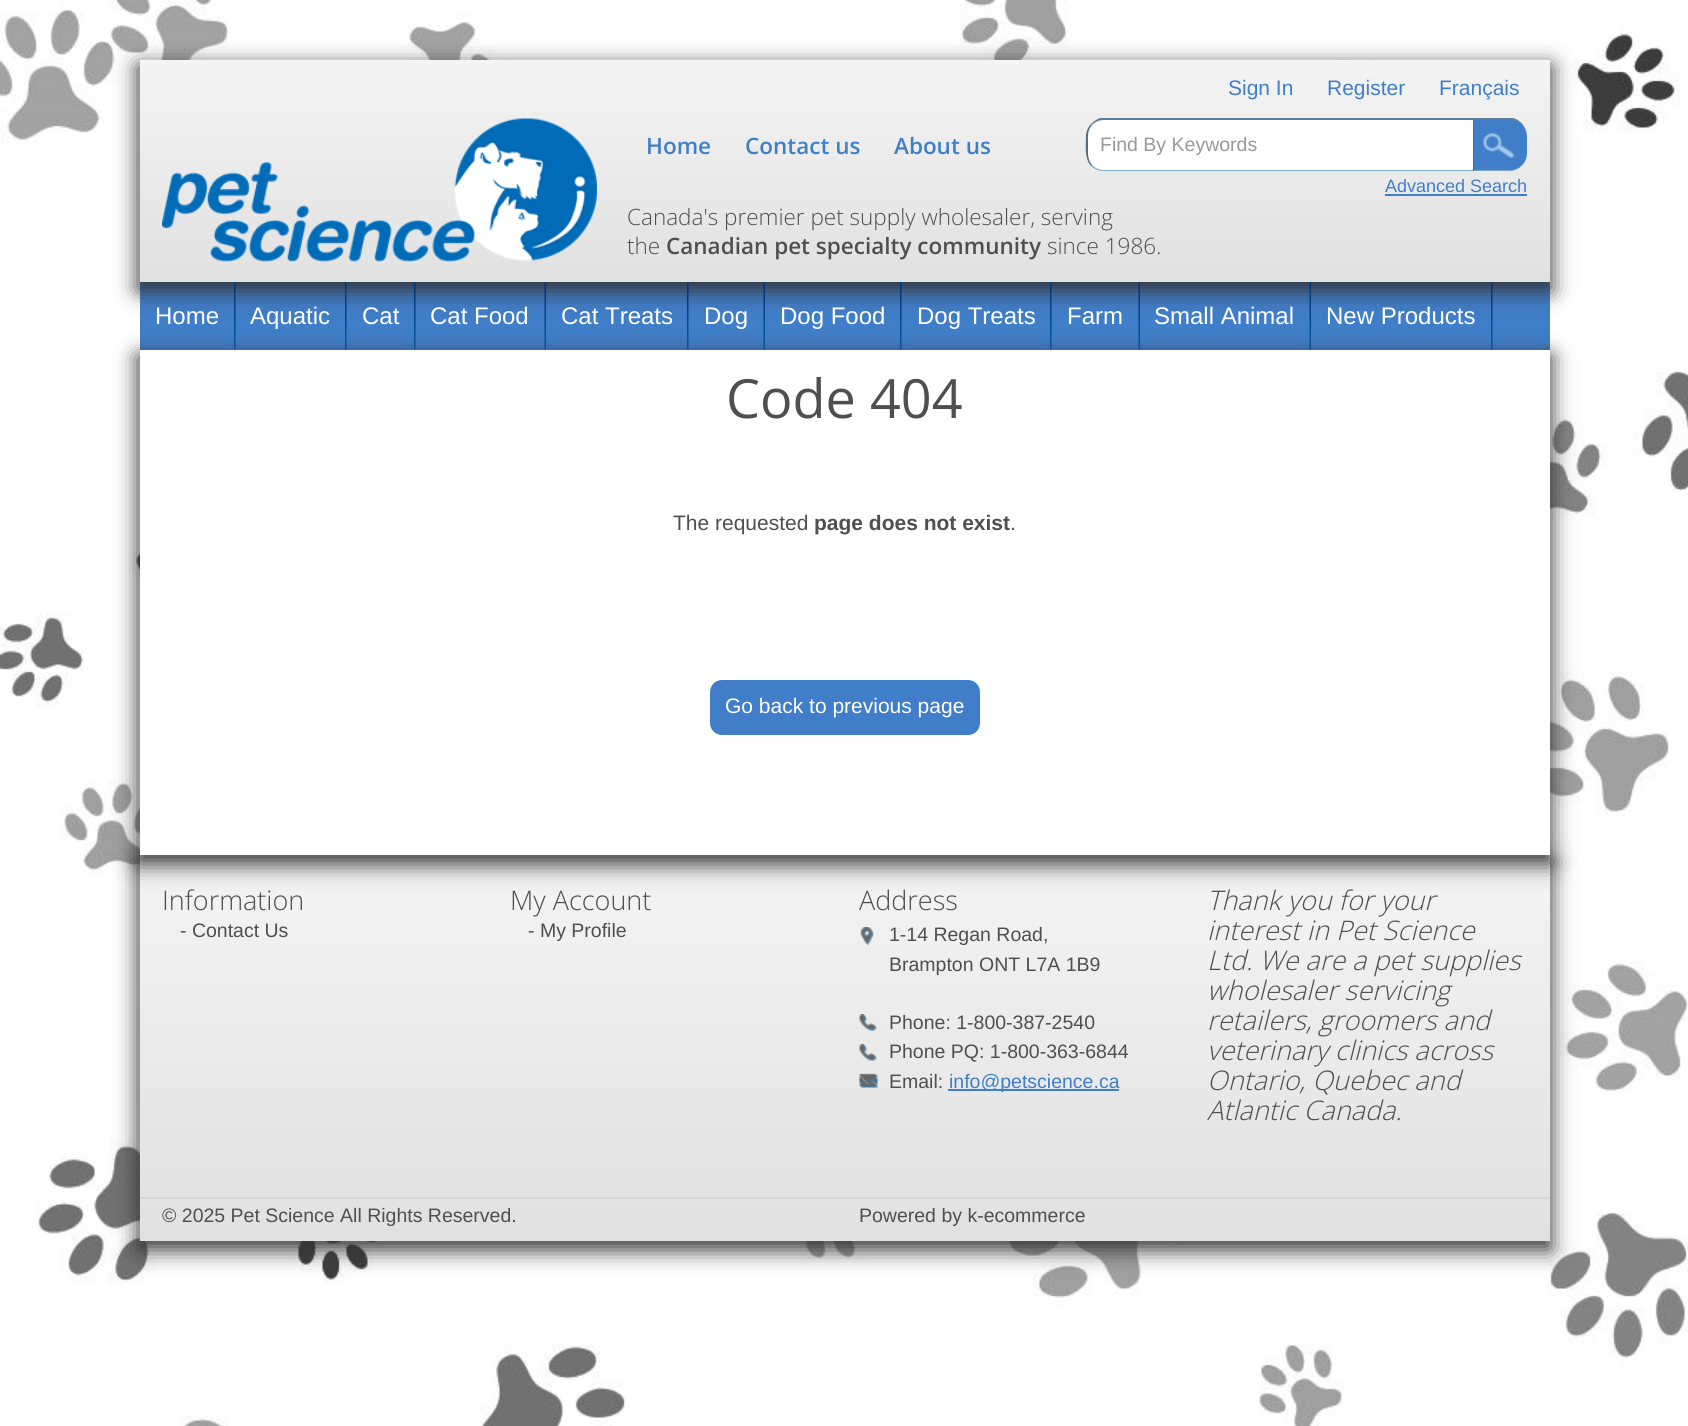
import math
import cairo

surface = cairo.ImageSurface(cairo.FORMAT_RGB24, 1688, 1426)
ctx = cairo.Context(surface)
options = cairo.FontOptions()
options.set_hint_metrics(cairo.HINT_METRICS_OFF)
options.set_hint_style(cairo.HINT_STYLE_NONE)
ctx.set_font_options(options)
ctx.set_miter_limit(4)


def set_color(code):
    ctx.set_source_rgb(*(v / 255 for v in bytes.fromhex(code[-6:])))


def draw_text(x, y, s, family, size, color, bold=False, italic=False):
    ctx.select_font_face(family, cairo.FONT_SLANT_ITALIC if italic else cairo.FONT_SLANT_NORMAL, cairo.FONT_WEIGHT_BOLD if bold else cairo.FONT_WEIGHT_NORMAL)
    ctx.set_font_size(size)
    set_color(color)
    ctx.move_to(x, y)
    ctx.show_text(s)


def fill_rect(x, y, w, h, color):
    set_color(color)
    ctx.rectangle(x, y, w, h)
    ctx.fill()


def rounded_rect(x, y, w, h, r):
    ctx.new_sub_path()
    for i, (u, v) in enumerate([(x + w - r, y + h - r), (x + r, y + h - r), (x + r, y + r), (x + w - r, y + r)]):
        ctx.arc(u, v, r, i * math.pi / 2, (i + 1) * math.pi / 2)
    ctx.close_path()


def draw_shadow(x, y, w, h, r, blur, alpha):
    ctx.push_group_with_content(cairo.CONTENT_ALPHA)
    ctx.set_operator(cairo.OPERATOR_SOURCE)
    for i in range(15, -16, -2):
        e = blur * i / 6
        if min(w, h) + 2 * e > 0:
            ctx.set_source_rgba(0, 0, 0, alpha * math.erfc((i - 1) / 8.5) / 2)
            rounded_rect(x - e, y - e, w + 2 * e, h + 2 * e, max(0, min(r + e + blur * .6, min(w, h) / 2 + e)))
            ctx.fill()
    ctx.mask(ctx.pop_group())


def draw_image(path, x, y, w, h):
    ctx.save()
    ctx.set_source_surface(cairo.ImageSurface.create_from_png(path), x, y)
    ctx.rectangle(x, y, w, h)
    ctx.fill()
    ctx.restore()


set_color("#ffffff")
ctx.paint()
draw_image("assets/img1.png", 0, 0, 1688, 1426)
fill_rect(140, 282, 1410, 68, "#407ec9")
set_color("#333333")
draw_shadow(138, 66, 1413, 225, 0, 11, 1)
gradient = cairo.LinearGradient(845, 60, 845, 282)
gradient.add_color_stop_rgba(0, 0.957, 0.957, 0.957, 1)
gradient.add_color_stop_rgba(1, 0.882, 0.882, 0.882, 1)
ctx.set_source(gradient)
ctx.rectangle(140, 60, 1410, 222)
ctx.fill()
draw_text(1228, 95, "Sign In", "Liberation Sans", 21, "#407ec9")
draw_text(1327, 95, "Register", "Liberation Sans", 21, "#407ec9")
draw_text(1439, 95, "Français", "Liberation Sans", 21, "#407ec9")
draw_image("assets/img2.png", 162, 118, 435, 144)
draw_text(646, 154, "Home", "Open Sans SemiBold", 22.5, "#407ec9")
draw_text(745, 154, "Contact us", "Open Sans SemiBold", 22.5, "#407ec9")
draw_text(894, 154, "About us", "Open Sans SemiBold", 22.5, "#407ec9")
set_color("#ffffff")
ctx.new_path()
ctx.move_to(1104, 119)
ctx.line_to(1473, 119)
ctx.line_to(1473, 171)
ctx.line_to(1104, 171)
ctx.curve_to(1094, 171, 1086, 163, 1086, 153)
ctx.line_to(1086, 137)
ctx.curve_to(1086, 127, 1094, 119, 1104, 119)
ctx.close_path()
ctx.fill()
set_color("#5f7c93")
ctx.new_path()
ctx.move_to(1104, 120)
ctx.curve_to(1099, 120, 1095, 122, 1092, 125)
ctx.line_to(1091, 124)
ctx.curve_to(1094, 121, 1097, 119, 1100, 118)
ctx.line_to(1473, 118)
ctx.line_to(1473, 120)
ctx.close_path()
ctx.fill()
set_color("#7fa6c5")
ctx.new_path()
ctx.move_to(1473, 171)
ctx.line_to(1473, 170)
ctx.line_to(1104, 170)
ctx.curve_to(1099, 170, 1095, 168, 1092, 165)
ctx.line_to(1091, 166)
ctx.curve_to(1094, 169, 1099, 171, 1104, 171)
ctx.close_path()
ctx.fill()
set_color("#516a7d")
ctx.new_path()
ctx.move_to(1086, 136)
ctx.curve_to(1086, 146, 1084, 158, 1091, 166)
ctx.line_to(1092, 165)
ctx.curve_to(1087, 159, 1088, 152, 1088, 144)
ctx.curve_to(1088, 138, 1087, 130, 1092, 125)
ctx.line_to(1091, 124)
ctx.curve_to(1088, 127, 1086, 132, 1086, 136)
ctx.close_path()
ctx.fill()
draw_text(1100, 151, "Find By Keywords", "Liberation Sans", 19.5, "#999999")
set_color("#407ec9")
ctx.new_path()
ctx.move_to(1473, 119)
ctx.line_to(1509, 119)
ctx.curve_to(1519, 119, 1527, 127, 1527, 137)
ctx.line_to(1527, 153)
ctx.curve_to(1527, 163, 1519, 171, 1509, 171)
ctx.line_to(1473, 171)
ctx.close_path()
ctx.fill()
set_color("#5f7c93")
ctx.new_path()
ctx.move_to(1473, 118)
ctx.line_to(1513, 118)
ctx.curve_to(1521, 120, 1527, 128, 1527, 136)
ctx.curve_to(1527, 127, 1519, 120, 1509, 120)
ctx.line_to(1474, 120)
ctx.close_path()
ctx.fill()
set_color("#7fa6c5")
ctx.new_path()
ctx.move_to(1509, 171)
ctx.curve_to(1519, 171, 1527, 163, 1527, 153)
ctx.curve_to(1527, 162, 1519, 170, 1509, 170)
ctx.line_to(1474, 170)
ctx.line_to(1473, 171)
ctx.close_path()
ctx.fill()
set_color("#516a7d")
ctx.new_path()
ctx.move_to(1474, 120)
ctx.line_to(1473, 118)
ctx.line_to(1473, 171)
ctx.line_to(1474, 170)
ctx.close_path()
ctx.fill()
draw_image("assets/img3.png", 1483, 133, 31, 25)
draw_text(1385, 192, "Advanced Search", "Liberation Sans", 18, "#407ec9")
fill_rect(1385, 194, 142, 2, "#407ec9")
draw_text(627, 225, "Canada's premier pet supply wholesaler, serving", "Open Sans Light", 22.5, "#4f4f4f")
draw_text(627, 254, "the", "Open Sans Light", 22.5, "#4f4f4f")
draw_text(666, 254, "Canadian pet specialty community", "Open Sans SemiBold", 22.5, "#4f4f4f")
draw_text(1047, 254, "since 1986.", "Open Sans Light", 22.5, "#4f4f4f")
draw_image("assets/img4.png", 234, 282, 2, 68)
draw_text(155, 324, "Home", "Liberation Sans", 24, "#ffffff")
draw_image("assets/img4.png", 345, 282, 2, 68)
draw_text(250, 324, "Aquatic", "Liberation Sans", 24, "#ffffff")
draw_image("assets/img4.png", 414, 282, 2, 68)
draw_text(362, 324, "Cat", "Liberation Sans", 24, "#ffffff")
draw_image("assets/img5.png", 544, 282, 2, 68)
draw_text(430, 324, "Cat Food", "Liberation Sans", 24, "#ffffff")
draw_image("assets/img4.png", 687, 282, 2, 68)
draw_text(561, 324, "Cat Treats", "Liberation Sans", 24, "#ffffff")
draw_image("assets/img5.png", 763, 282, 2, 68)
draw_text(704, 324, "Dog", "Liberation Sans", 24, "#ffffff")
draw_image("assets/img4.png", 900, 282, 2, 68)
draw_text(780, 324, "Dog Food", "Liberation Sans", 24, "#ffffff")
draw_image("assets/img4.png", 1050, 282, 2, 68)
draw_text(917, 324, "Dog Treats", "Liberation Sans", 24, "#ffffff")
draw_image("assets/img5.png", 1138, 282, 2, 68)
draw_text(1067, 324, "Farm", "Liberation Sans", 24, "#ffffff")
draw_image("assets/img5.png", 1309, 282, 2, 68)
draw_text(1154, 324, "Small Animal", "Liberation Sans", 24, "#ffffff")
draw_image("assets/img4.png", 1491, 282, 2, 68)
draw_text(1326, 324, "New Products", "Liberation Sans", 24, "#ffffff")
set_color("#333333")
draw_shadow(138, 861, 1413, 389, 0, 11, 1)
gradient = cairo.LinearGradient(845, 855, 845, 1241)
gradient.add_color_stop_rgba(0, 0.957, 0.957, 0.957, 1)
gradient.add_color_stop_rgba(1, 0.882, 0.882, 0.882, 1)
ctx.set_source(gradient)
ctx.rectangle(140, 855, 1410, 386)
ctx.fill()
set_color("#333333")
draw_shadow(138, 356, 1413, 508, 0, 11, 1)
fill_rect(140, 350, 1410, 505, "#ffffff")
draw_text(726, 418, "Code 404", "Open Sans", 54, "#4f4f4f")
draw_text(673, 530, "The requested", "Liberation Sans", 21, "#4f4f4f")
draw_text(814, 530, "page does not exist", "Liberation Sans", 21, "#4f4f4f", bold=True)
draw_text(1010, 530, ".", "Liberation Sans", 21, "#4f4f4f")
set_color("#407ec9")
rounded_rect(710, 680, 270, 55, 12)
ctx.fill()
draw_text(725, 713, "Go back to previous page", "Liberation Sans", 21, "#ffffff")
draw_text(162, 910, "Information", "Open Sans Light", 27, "#4f4f4f")
draw_text(180, 937, "- Contact Us", "Liberation Sans", 19.5, "#4f4f4f")
draw_text(510, 910, "My Account", "Open Sans Light", 27, "#4f4f4f")
draw_text(528, 937, "- My Profile", "Liberation Sans", 19.5, "#4f4f4f")
draw_text(859, 910, "Address", "Open Sans Light", 27, "#4f4f4f")
draw_image("assets/img6.png", 860, 927, 14, 18)
draw_text(889, 941, "1-14 Regan Road,", "Liberation Sans", 19.5, "#4f4f4f")
draw_text(889, 971, "Brampton ONT L7A 1B9", "Liberation Sans", 19.5, "#4f4f4f")
draw_image("assets/img7.png", 859, 1014, 18, 17)
draw_text(889, 1029, "Phone: 1-800-387-2540", "Liberation Sans", 19.5, "#4f4f4f")
draw_image("assets/img8.png", 859, 1044, 18, 17)
draw_text(889, 1058, "Phone PQ: 1-800-363-6844", "Liberation Sans", 19.5, "#4f4f4f")
draw_image("assets/img9.png", 859, 1073, 19, 15)
draw_text(889, 1088, "Email:", "Liberation Sans", 19.5, "#4f4f4f")
fill_rect(948, 1089, 171, 2, "#407ec9")
draw_text(949, 1088, "info@petscience.ca", "Liberation Sans", 19.5, "#407ec9")
draw_text(1207, 910, "Thank you for your", "Open Sans Light", 27, "#4f4f4f", italic=True)
draw_text(1207, 940, "interest in Pet Science", "Open Sans Light", 27, "#4f4f4f", italic=True)
draw_text(1207, 970, "Ltd. We are a pet supplies", "Open Sans Light", 27, "#4f4f4f", italic=True)
draw_text(1207, 1000, "wholesaler servicing", "Open Sans Light", 27, "#4f4f4f", italic=True)
draw_text(1207, 1030, "retailers, groomers and", "Open Sans Light", 27, "#4f4f4f", italic=True)
draw_text(1207, 1060, "veterinary clinics across", "Open Sans Light", 27, "#4f4f4f", italic=True)
draw_text(1207, 1090, "Ontario, Quebec and", "Open Sans Light", 27, "#4f4f4f", italic=True)
draw_text(1207, 1120, "Atlantic Canada.", "Open Sans Light", 27, "#4f4f4f", italic=True)
fill_rect(140, 1197, 1410, 2, "#d6d6d6")
draw_text(162, 1222, "© 2025 Pet Science All Rights Reserved.", "Liberation Sans", 19.5, "#4f4f4f")
draw_text(859, 1222, "Powered by k-ecommerce", "Liberation Sans", 19.5, "#4f4f4f")
surface.write_to_png("output.png")
